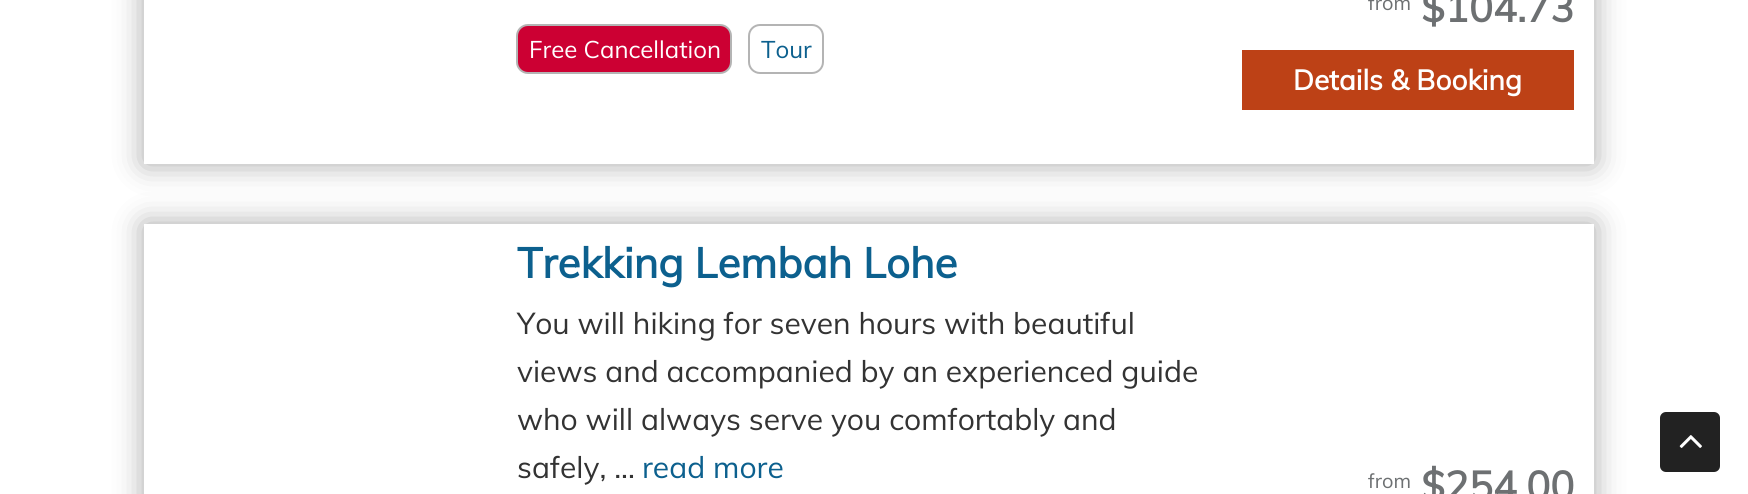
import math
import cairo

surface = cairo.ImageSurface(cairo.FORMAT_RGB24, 1748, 494)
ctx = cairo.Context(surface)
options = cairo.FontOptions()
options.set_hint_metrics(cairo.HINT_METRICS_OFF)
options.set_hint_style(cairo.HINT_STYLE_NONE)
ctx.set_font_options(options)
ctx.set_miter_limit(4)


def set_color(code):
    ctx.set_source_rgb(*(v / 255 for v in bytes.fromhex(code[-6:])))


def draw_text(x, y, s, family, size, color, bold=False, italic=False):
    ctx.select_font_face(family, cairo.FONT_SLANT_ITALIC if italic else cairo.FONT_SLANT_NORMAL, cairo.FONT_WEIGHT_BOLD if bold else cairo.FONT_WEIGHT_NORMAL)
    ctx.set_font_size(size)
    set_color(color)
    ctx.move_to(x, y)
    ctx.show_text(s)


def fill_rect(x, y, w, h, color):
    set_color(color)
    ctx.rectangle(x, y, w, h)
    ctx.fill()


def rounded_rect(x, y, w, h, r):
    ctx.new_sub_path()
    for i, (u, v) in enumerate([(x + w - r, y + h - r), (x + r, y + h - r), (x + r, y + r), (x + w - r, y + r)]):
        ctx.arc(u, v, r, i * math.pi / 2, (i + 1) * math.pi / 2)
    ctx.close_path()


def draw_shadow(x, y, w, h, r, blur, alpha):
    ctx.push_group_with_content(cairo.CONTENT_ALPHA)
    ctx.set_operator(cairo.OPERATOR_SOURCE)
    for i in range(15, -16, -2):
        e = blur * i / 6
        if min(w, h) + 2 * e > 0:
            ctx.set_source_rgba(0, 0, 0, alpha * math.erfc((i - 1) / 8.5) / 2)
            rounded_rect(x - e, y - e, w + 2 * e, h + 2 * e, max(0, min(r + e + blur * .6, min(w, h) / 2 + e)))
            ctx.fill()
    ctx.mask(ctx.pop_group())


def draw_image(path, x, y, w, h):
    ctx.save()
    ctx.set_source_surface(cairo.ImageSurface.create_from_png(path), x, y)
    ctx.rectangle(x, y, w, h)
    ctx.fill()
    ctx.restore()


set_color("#ffffff")
ctx.paint()
ctx.save()
ctx.set_fill_rule(cairo.FILL_RULE_EVEN_ODD)
ctx.new_path()
ctx.move_to(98, 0)
ctx.line_to(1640, 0)
ctx.line_to(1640, 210)
ctx.line_to(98, 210)
ctx.close_path()
ctx.move_to(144, -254)
ctx.line_to(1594, -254)
ctx.line_to(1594, 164)
ctx.line_to(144, 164)
ctx.close_path()
ctx.clip()
set_color("#000000")
draw_shadow(144, -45, 1450, 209, 0, 15, 0.35)
ctx.restore()
set_color("#cc0033")
rounded_rect(517, 25, 214, 48, 11)
ctx.fill_preserve()
set_color("#b4b4b4")
ctx.stroke()
draw_text(529, 58, "Free Cancellation", "Muli", 24, "#ffffff")
rounded_rect(749, 25, 74, 48, 11)
set_color("#b4b4b4")
ctx.stroke()
draw_text(761, 58, "Tour", "Muli", 24, "#0c608e")
draw_text(1368, 10, "from", "Muli", 20, "#6d7072")
draw_text(1421, 22, "$104.73", "Muli", 40, "#6d7072", bold=True)
fill_rect(1242, 50, 332, 60, "#bd4116")
draw_text(1293, 90, "Details & Booking", "Muli", 28, "#ffffff", bold=True)
ctx.save()
ctx.set_fill_rule(cairo.FILL_RULE_EVEN_ODD)
ctx.new_path()
ctx.move_to(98, 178)
ctx.line_to(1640, 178)
ctx.line_to(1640, 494)
ctx.line_to(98, 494)
ctx.close_path()
ctx.move_to(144, 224)
ctx.line_to(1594, 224)
ctx.line_to(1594, 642)
ctx.line_to(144, 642)
ctx.close_path()
ctx.clip()
set_color("#000000")
draw_shadow(144, 224, 1450, 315, 0, 15, 0.35)
ctx.restore()
draw_text(517, 278, "Trekking Lembah Lohe", "Muli", 42, "#0c608e", bold=True)
draw_text(517, 334, "You will hiking for seven hours with beautiful", "Muli", 30, "#333333")
draw_text(517, 382, "views and accompanied by an experienced guide", "Muli", 30, "#333333")
draw_text(517, 430, "who will always serve you comfortably and", "Muli", 30, "#333333")
draw_text(517, 478, "safely, ...", "Muli", 30, "#333333")
draw_text(642, 478, "read more", "Muli", 30, "#0c608e")
draw_text(1368, 488, "from", "Muli", 20, "#6d7072")
draw_text(1421, 500, "$254.00", "Muli", 40, "#6d7072", bold=True)
set_color("#222222")
rounded_rect(1660, 412, 60, 60, 6)
ctx.fill()
draw_image("assets/img1.png", 1679, 435, 23, 13)
surface.write_to_png("output.png")
